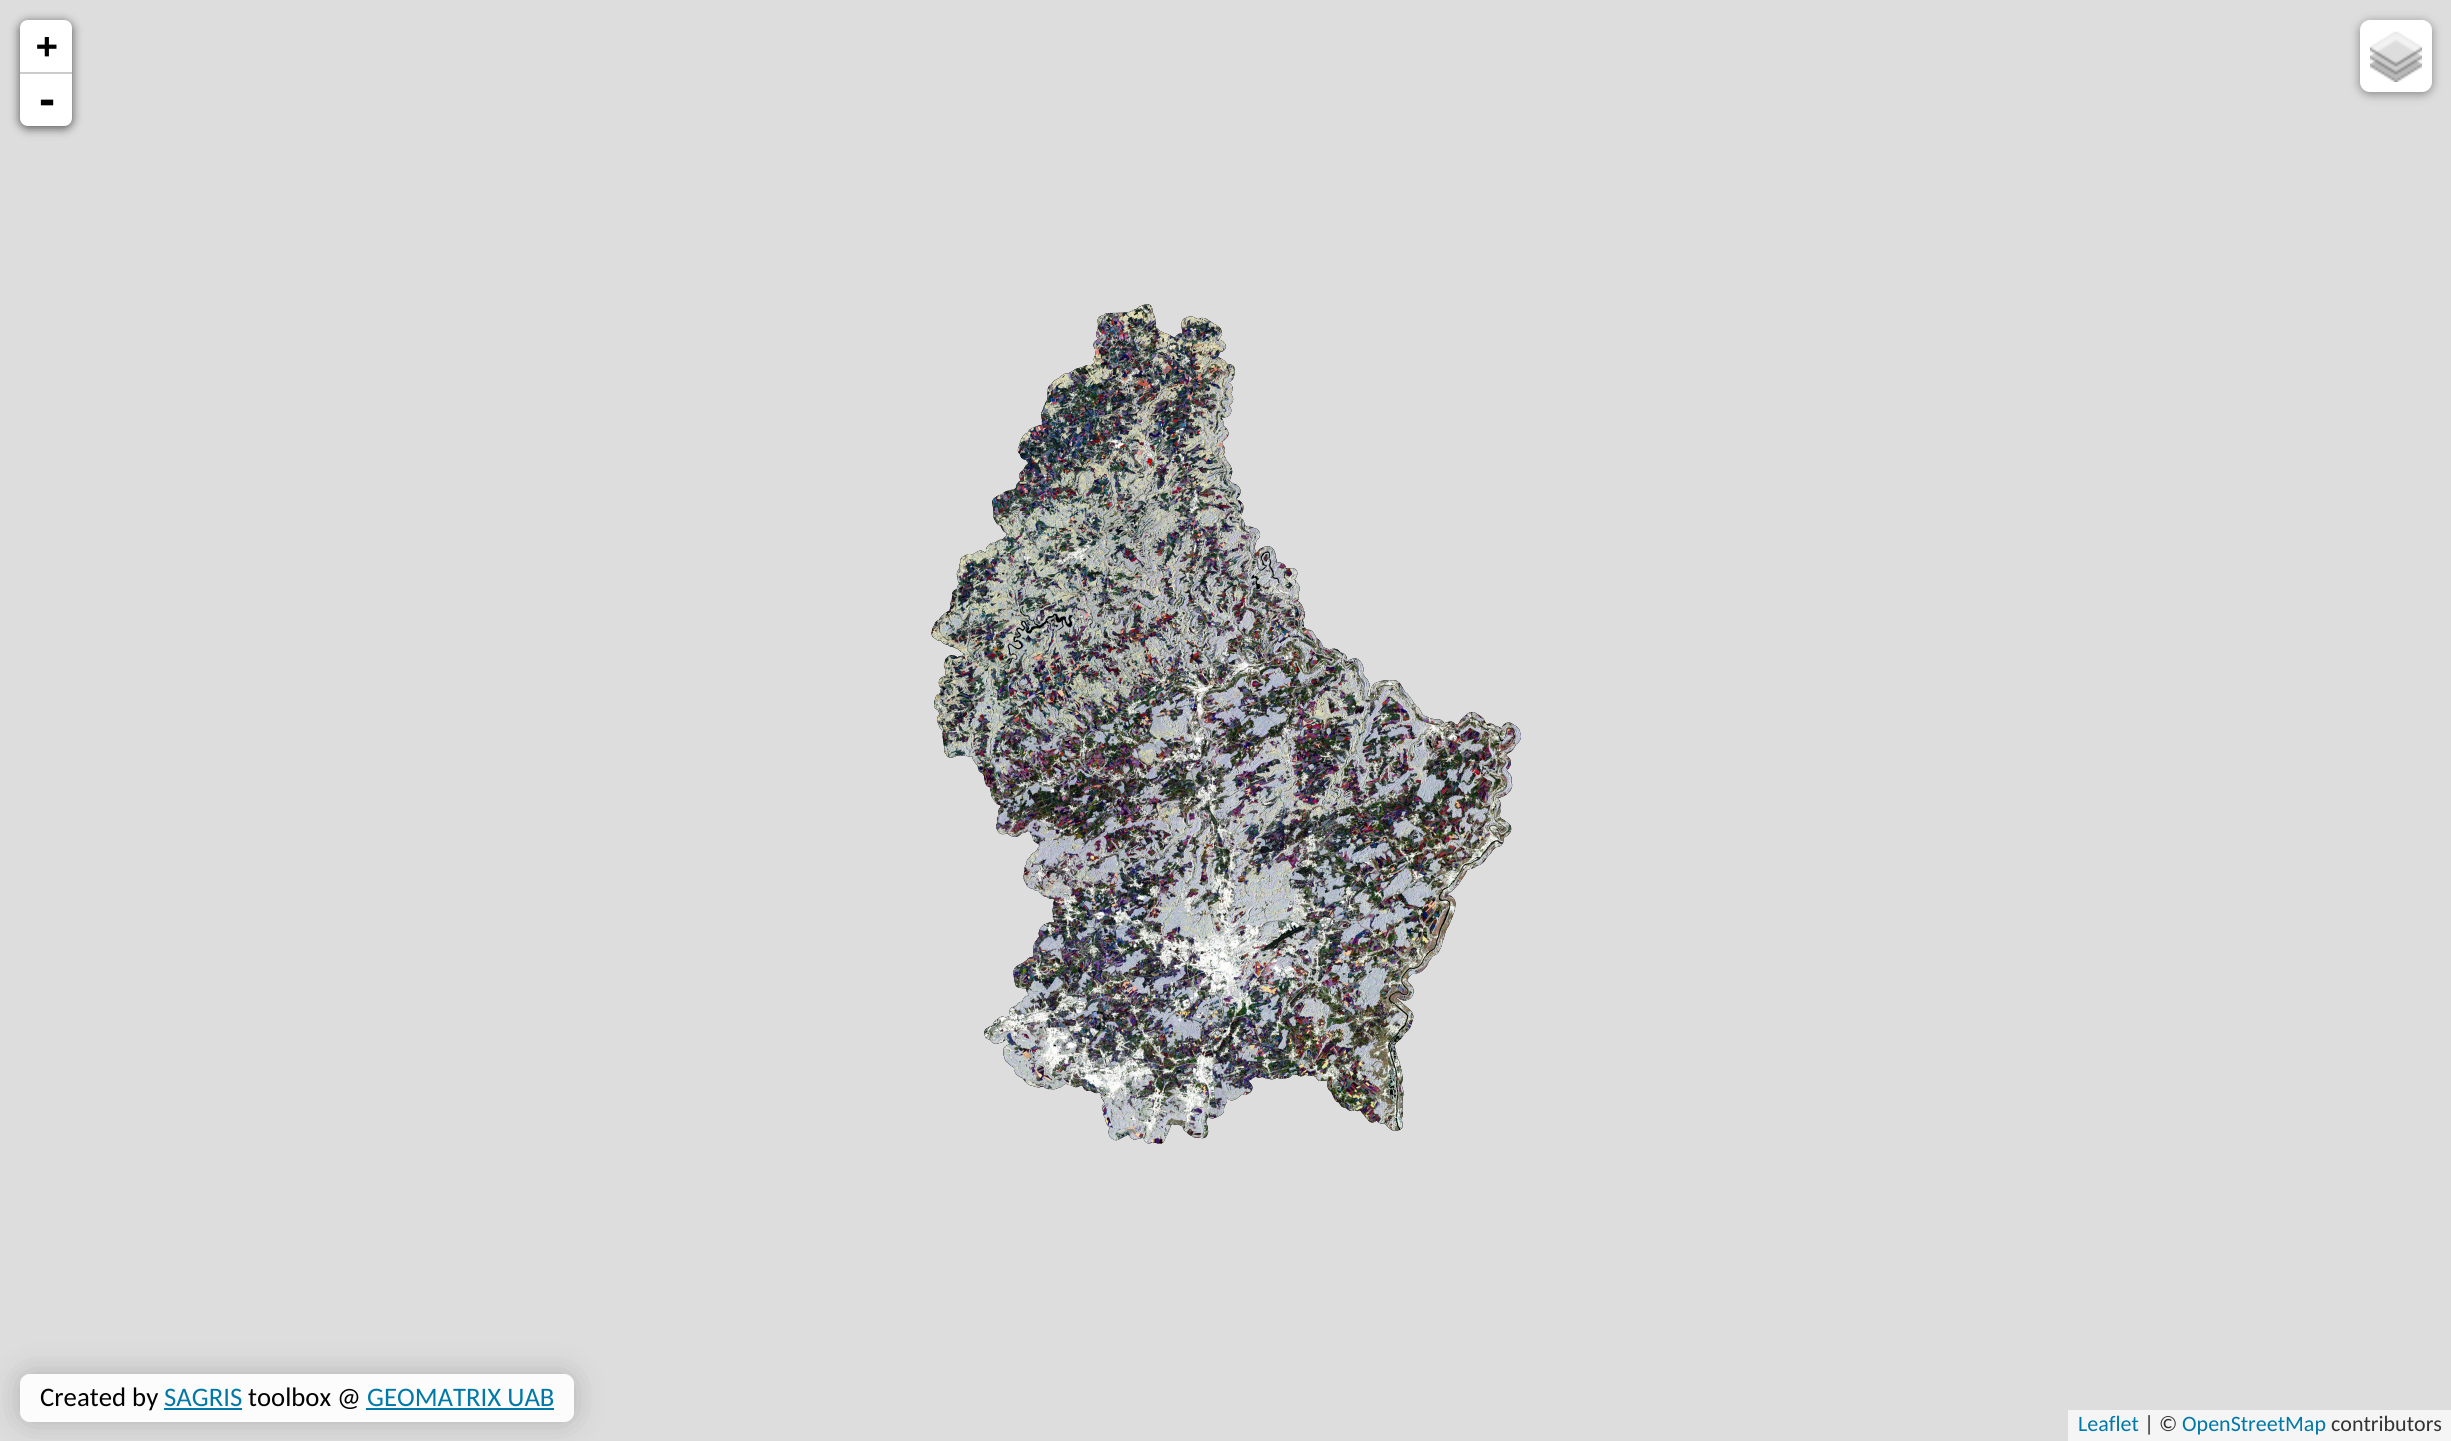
import math
import cairo

surface = cairo.ImageSurface(cairo.FORMAT_RGB24, 2451, 1441)
ctx = cairo.Context(surface)
options = cairo.FontOptions()
options.set_hint_metrics(cairo.HINT_METRICS_OFF)
options.set_hint_style(cairo.HINT_STYLE_NONE)
ctx.set_font_options(options)
ctx.set_miter_limit(4)


def set_color(code):
    ctx.set_source_rgb(*(v / 255 for v in bytes.fromhex(code[-6:])))


def draw_text(x, y, s, family, size, color, bold=False, italic=False):
    ctx.select_font_face(family, cairo.FONT_SLANT_ITALIC if italic else cairo.FONT_SLANT_NORMAL, cairo.FONT_WEIGHT_BOLD if bold else cairo.FONT_WEIGHT_NORMAL)
    ctx.set_font_size(size)
    set_color(color)
    ctx.move_to(x, y)
    ctx.show_text(s)


def fill_rect(x, y, w, h, color):
    set_color(color)
    ctx.rectangle(x, y, w, h)
    ctx.fill()


def rounded_rect(x, y, w, h, r):
    ctx.new_sub_path()
    for i, (u, v) in enumerate([(x + w - r, y + h - r), (x + r, y + h - r), (x + r, y + r), (x + w - r, y + r)]):
        ctx.arc(u, v, r, i * math.pi / 2, (i + 1) * math.pi / 2)
    ctx.close_path()


def draw_shadow(x, y, w, h, r, blur, alpha):
    ctx.push_group_with_content(cairo.CONTENT_ALPHA)
    ctx.set_operator(cairo.OPERATOR_SOURCE)
    for i in range(15, -16, -2):
        e = blur * i / 6
        if min(w, h) + 2 * e > 0:
            ctx.set_source_rgba(0, 0, 0, alpha * math.erfc((i - 1) / 8.5) / 2)
            rounded_rect(x - e, y - e, w + 2 * e, h + 2 * e, max(0, min(r + e + blur * .6, min(w, h) / 2 + e)))
            ctx.fill()
    ctx.mask(ctx.pop_group())


def draw_image(path, x, y, w, h):
    ctx.save()
    ctx.set_source_surface(cairo.ImageSurface.create_from_png(path), x, y)
    ctx.rectangle(x, y, w, h)
    ctx.fill()
    ctx.restore()


set_color("#dddddd")
ctx.paint()
set_color("#000000")
draw_shadow(20, 22, 52, 106, 8, 5, 0.65)
set_color("#ffffff")
ctx.new_path()
ctx.move_to(28, 20)
ctx.line_to(64, 20)
ctx.curve_to(68.5, 20, 72, 23.5, 72, 28)
ctx.line_to(72, 74)
ctx.line_to(20, 74)
ctx.line_to(20, 28)
ctx.curve_to(20, 23.5, 23.5, 20, 28, 20)
ctx.close_path()
ctx.fill()
fill_rect(20, 72, 52, 2, "#cccccc")
draw_text(36, 58, "+", "DejaVu Sans Mono", 36, "#000000", bold=True)
set_color("#ffffff")
ctx.new_path()
ctx.move_to(20, 74)
ctx.line_to(72, 74)
ctx.line_to(72, 118)
ctx.curve_to(72, 122.5, 68.5, 126, 64, 126)
ctx.line_to(28, 126)
ctx.curve_to(23.5, 126, 20, 122.5, 20, 118)
ctx.close_path()
ctx.fill()
draw_text(35, 114, "-", "DejaVu Sans Mono", 40, "#000000", bold=True)
set_color("#000000")
draw_shadow(2360, 22, 72, 72, 10, 5, 0.4)
set_color("#ffffff")
rounded_rect(2360, 20, 72, 72, 10)
ctx.fill()
draw_image("assets/img1.png", 2370, 31, 52, 51)
ctx.save()
ctx.set_fill_rule(cairo.FILL_RULE_EVEN_ODD)
ctx.new_path()
ctx.move_to(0, 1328)
ctx.line_to(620, 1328)
ctx.line_to(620, 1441)
ctx.line_to(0, 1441)
ctx.close_path()
ctx.move_to(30, 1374)
ctx.line_to(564, 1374)
ctx.curve_to(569.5, 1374, 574, 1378.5, 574, 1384)
ctx.line_to(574, 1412)
ctx.curve_to(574, 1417.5, 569.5, 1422, 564, 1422)
ctx.line_to(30, 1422)
ctx.curve_to(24.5, 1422, 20, 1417.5, 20, 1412)
ctx.line_to(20, 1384)
ctx.curve_to(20, 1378.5, 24.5, 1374, 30, 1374)
ctx.close_path()
ctx.clip()
set_color("#000000")
draw_shadow(20, 1374, 554, 48, 10, 15, 0.2)
ctx.restore()
ctx.set_source_rgba(1, 1, 1, 0.9)
rounded_rect(20, 1374, 554, 48, 10)
ctx.fill()
draw_text(40, 1406, "Created by", "Carlito", 26.75, "#000000")
draw_text(164, 1406, "SAGRIS", "Carlito", 26.75, "#0078a8")
fill_rect(164, 1408, 78, 2, "#0078a8")
draw_text(248, 1406, "toolbox @", "Carlito", 26.75, "#000000")
draw_text(367, 1406, "GEOMATRIX UAB", "Carlito", 26.75, "#0078a8")
fill_rect(366, 1408, 188, 2, "#0078a8")
fill_rect(2068, 1410, 383, 31, "#f5f5f5")
draw_text(2078, 1431, "Leaflet", "Carlito", 22, "#0078a8")
draw_text(2144, 1431, "| ©", "Carlito", 22, "#333333")
draw_text(2182, 1431, "OpenStreetMap", "Carlito", 22, "#0078a8")
draw_text(2331, 1431, "contributors", "Carlito", 22, "#333333")
draw_image("assets/img2.png", 931, 304, 437, 396)
draw_image("assets/img3.png", 1368, 680, 44, 20)
draw_image("assets/img4.png", 934, 700, 434, 444)
draw_image("assets/img5.png", 1368, 700, 153, 431)
draw_image("assets/img6.png", 931, 304, 437, 396)
draw_image("assets/img7.png", 1368, 680, 44, 20)
draw_image("assets/img8.png", 934, 700, 434, 444)
draw_image("assets/img9.png", 1368, 700, 153, 431)
surface.write_to_png("output.png")
